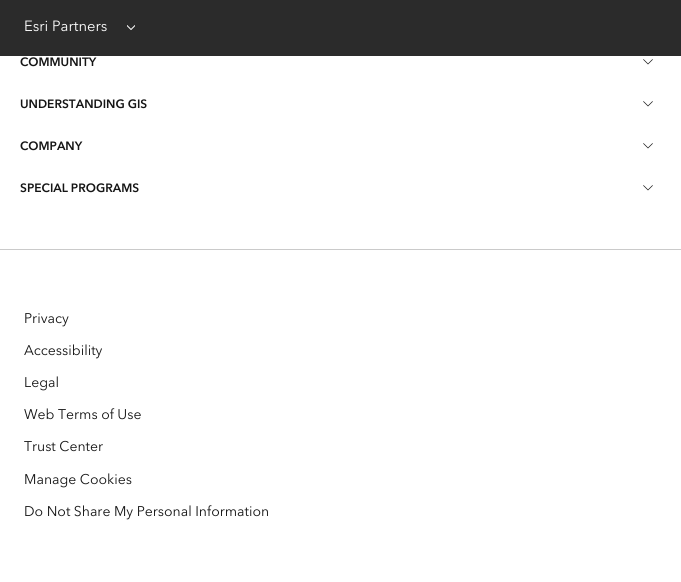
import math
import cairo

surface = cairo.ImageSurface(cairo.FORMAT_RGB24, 681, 582)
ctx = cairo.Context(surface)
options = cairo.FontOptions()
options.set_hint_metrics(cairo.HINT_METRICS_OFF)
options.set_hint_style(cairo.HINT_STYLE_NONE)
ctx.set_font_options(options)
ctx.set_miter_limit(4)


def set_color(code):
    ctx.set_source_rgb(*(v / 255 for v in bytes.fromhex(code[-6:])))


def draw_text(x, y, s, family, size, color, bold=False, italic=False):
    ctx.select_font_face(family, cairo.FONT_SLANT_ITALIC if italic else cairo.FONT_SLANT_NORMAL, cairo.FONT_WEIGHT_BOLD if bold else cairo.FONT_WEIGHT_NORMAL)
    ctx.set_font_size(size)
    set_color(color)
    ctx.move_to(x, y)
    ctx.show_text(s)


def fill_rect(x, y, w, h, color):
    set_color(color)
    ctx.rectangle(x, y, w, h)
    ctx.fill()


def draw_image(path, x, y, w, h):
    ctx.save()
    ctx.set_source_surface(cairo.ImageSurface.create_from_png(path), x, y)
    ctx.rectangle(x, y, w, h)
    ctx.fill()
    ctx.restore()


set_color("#ffffff")
ctx.paint()
fill_rect(0, 0, 681, 56, "#2b2b2b")
draw_text(24, 31, "Esri Partners", "Avenir Next", 14.75, "#ffffff")
draw_image("assets/img1.png", 127, 25, 8, 5)
draw_text(20, 66, "COMMUNITY", "Avenir Next", 12, "#151515", bold=True)
draw_image("assets/img2.png", 643, 59, 10, 6)
draw_text(20, 108, "UNDERSTANDING GIS", "Avenir Next", 12, "#151515", bold=True)
draw_image("assets/img2.png", 643, 101, 10, 6)
draw_text(20, 150, "COMPANY", "Avenir Next", 12, "#151515", bold=True)
draw_image("assets/img2.png", 643, 143, 10, 6)
draw_text(20, 192, "SPECIAL PROGRAMS", "Avenir Next", 12, "#151515", bold=True)
draw_image("assets/img2.png", 643, 185, 10, 6)
fill_rect(0, 249, 681, 1, "#cacaca")
draw_text(24, 323, "Privacy", "Avenir Next", 14, "#151515")
draw_text(24, 355, "Accessibility", "Avenir Next", 14, "#151515")
draw_text(24, 387, "Legal", "Avenir Next", 14, "#151515")
draw_text(24, 419, "Web Terms of Use", "Avenir Next", 14, "#151515")
draw_text(24, 451, "Trust Center", "Avenir Next", 14, "#151515")
draw_text(24, 484, "Manage Cookies", "Avenir Next", 14, "#151515")
draw_text(24, 516, "Do Not Share My Personal Information", "Avenir Next", 14, "#151515")
surface.write_to_png("output.png")
